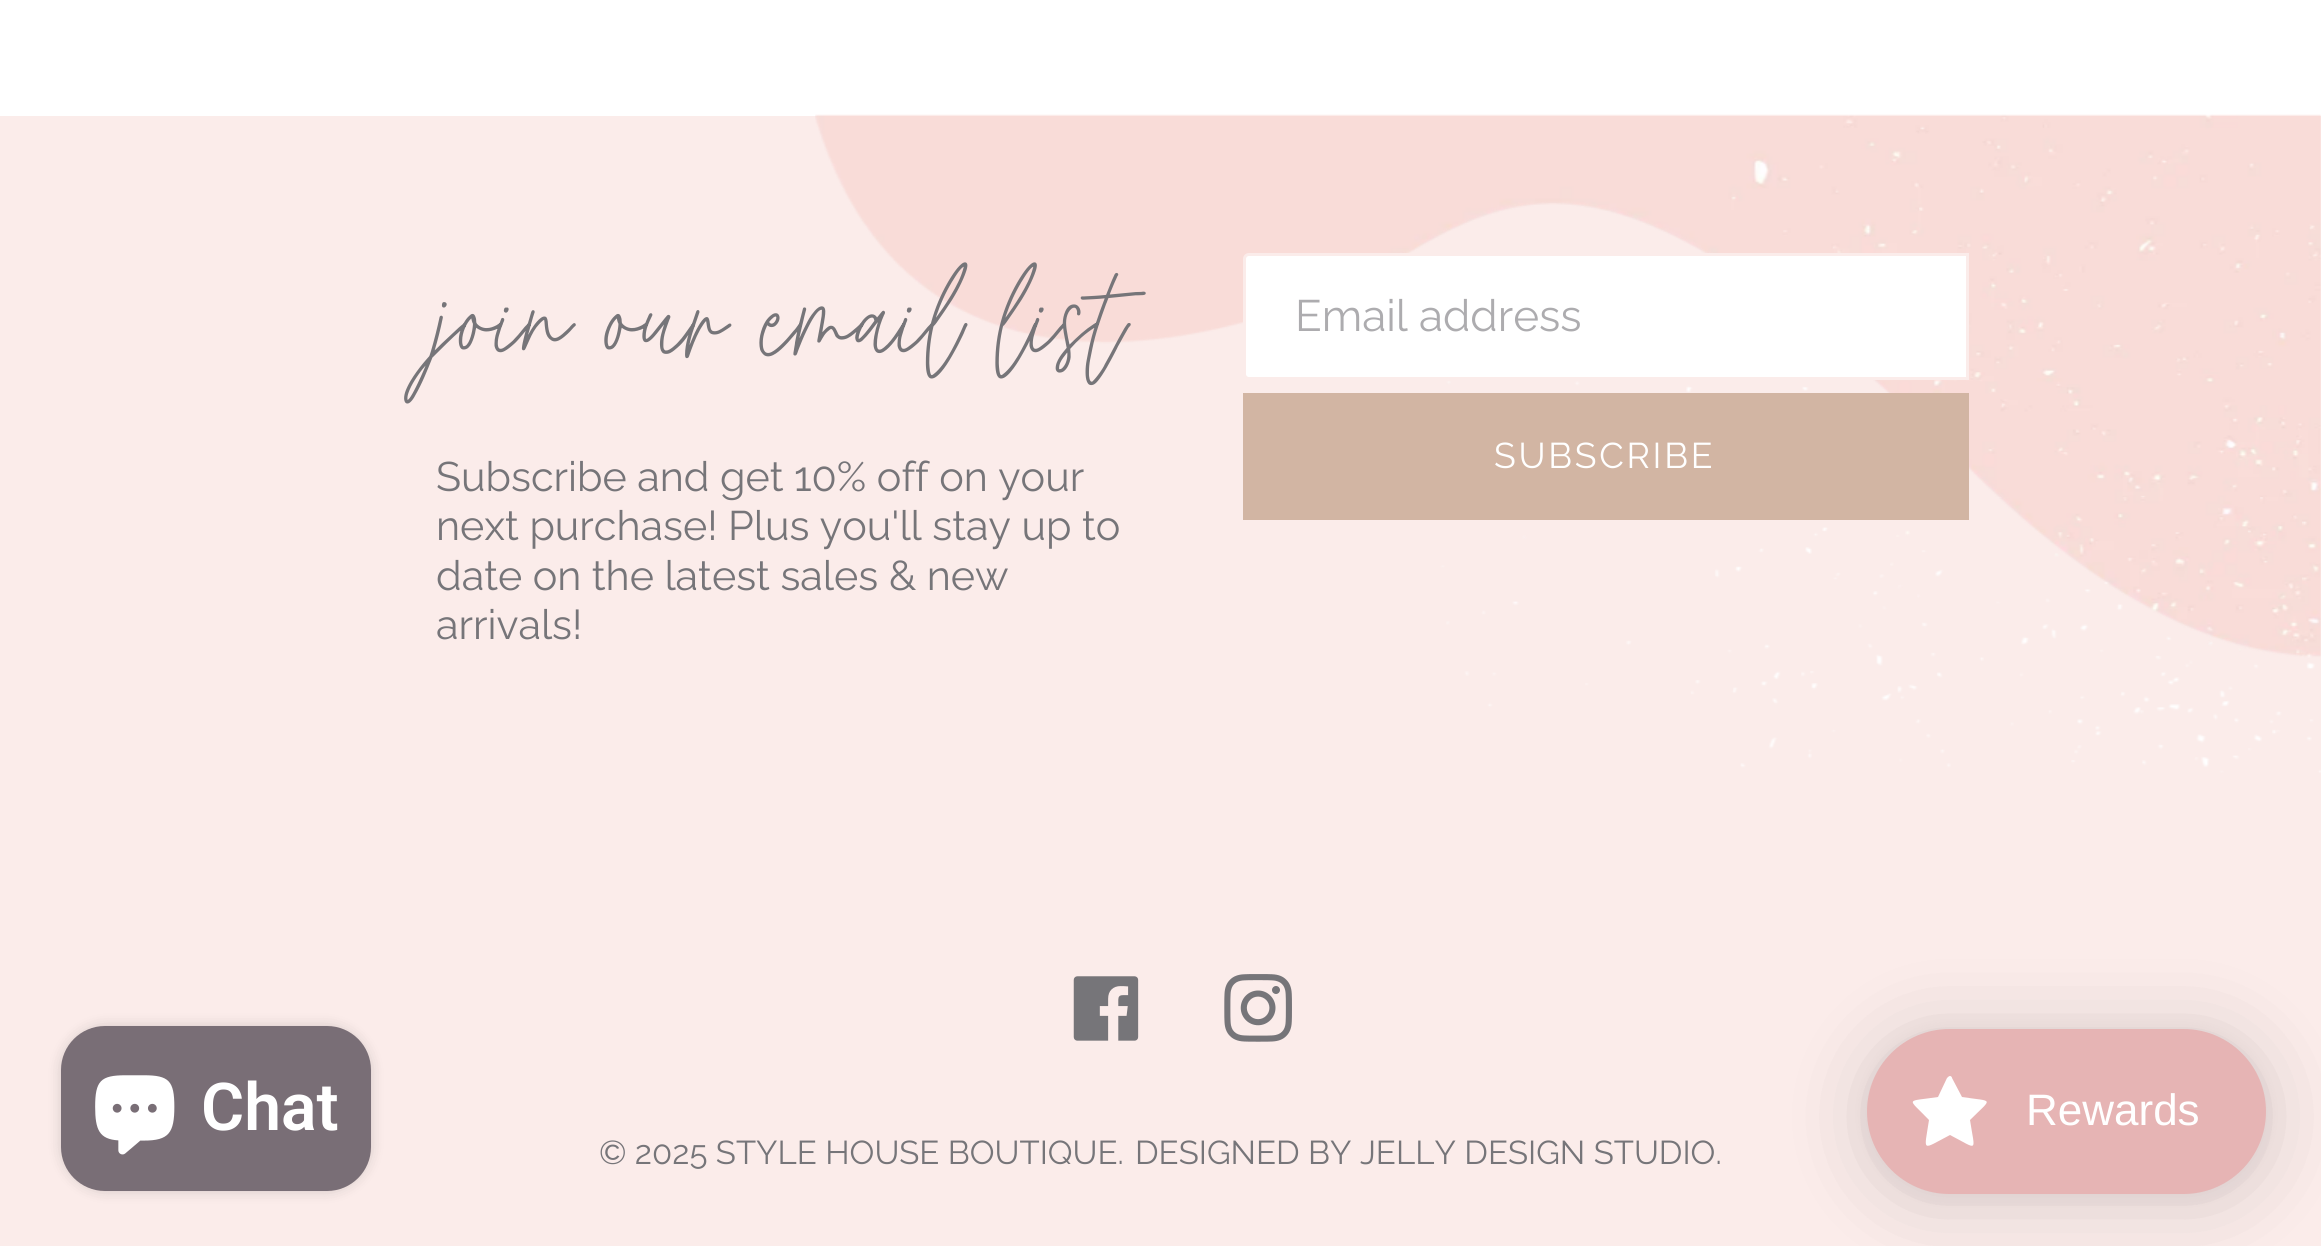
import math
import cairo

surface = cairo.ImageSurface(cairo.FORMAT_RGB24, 2321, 1246)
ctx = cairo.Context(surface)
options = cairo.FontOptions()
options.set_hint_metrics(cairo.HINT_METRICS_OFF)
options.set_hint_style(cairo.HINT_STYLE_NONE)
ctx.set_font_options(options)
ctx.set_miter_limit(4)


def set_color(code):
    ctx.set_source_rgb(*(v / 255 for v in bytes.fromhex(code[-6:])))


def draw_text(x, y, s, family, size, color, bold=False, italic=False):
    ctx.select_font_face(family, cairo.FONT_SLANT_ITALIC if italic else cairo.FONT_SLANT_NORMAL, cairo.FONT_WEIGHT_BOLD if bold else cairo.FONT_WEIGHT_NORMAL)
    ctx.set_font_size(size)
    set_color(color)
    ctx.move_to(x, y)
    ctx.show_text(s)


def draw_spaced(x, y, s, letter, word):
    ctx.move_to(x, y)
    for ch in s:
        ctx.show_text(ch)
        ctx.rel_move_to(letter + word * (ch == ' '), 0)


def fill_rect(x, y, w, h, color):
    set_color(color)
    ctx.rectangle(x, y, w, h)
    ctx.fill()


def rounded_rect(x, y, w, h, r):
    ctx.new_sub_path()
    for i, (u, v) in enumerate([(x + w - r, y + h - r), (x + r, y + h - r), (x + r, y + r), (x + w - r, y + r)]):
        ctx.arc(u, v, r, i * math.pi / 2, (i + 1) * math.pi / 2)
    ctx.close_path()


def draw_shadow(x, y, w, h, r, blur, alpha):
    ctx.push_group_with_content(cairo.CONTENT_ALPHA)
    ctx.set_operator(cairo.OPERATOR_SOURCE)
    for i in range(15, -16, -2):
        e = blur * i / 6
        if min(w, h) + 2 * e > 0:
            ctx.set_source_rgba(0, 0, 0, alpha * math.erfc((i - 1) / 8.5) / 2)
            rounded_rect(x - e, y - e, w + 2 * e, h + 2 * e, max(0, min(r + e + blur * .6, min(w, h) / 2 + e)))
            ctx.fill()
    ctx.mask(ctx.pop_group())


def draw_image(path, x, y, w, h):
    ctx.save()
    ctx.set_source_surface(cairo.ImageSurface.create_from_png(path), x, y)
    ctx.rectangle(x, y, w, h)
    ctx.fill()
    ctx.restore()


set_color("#ffffff")
ctx.paint()
fill_rect(0, 116, 2321, 1130, "#fbecea")
set_color("#000000")
draw_shadow(61, 1026, 310, 165, 44, 7, 0.15)
set_color("#796e76")
rounded_rect(61, 1026, 310, 165, 44)
ctx.fill()
draw_image("assets/img1.png", 95, 1075, 80, 80)
draw_text(201, 1130, "Chat", "Roboto SemiBold", 66, "#ffffff")
draw_image("assets/img2.png", 815, 114, 1506, 659)
draw_text(436, 366, "join our email list", "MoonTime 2", 137.5, "#767579")
draw_text(436, 491, "Subscribe and get 10% off on your", "Raleway", 41.25, "#767579")
draw_text(436, 540, "next purchase! Plus you'll stay up to", "Raleway", 41.25, "#767579")
draw_text(436, 590, "date on the latest sales & new", "Raleway", 41.25, "#767579")
draw_text(436, 639, "arrivals!", "Raleway", 41.25, "#767579")
set_color("#ffffff")
ctx.new_path()
ctx.move_to(1249, 254.5)
ctx.line_to(1967.5, 254.5)
ctx.line_to(1967.5, 378.5)
ctx.line_to(1249, 378.5)
ctx.curve_to(1246.5, 378.5, 1244.5, 376.5, 1244.5, 374)
ctx.line_to(1244.5, 259)
ctx.curve_to(1244.5, 256.5, 1246.5, 254.5, 1249, 254.5)
ctx.close_path()
ctx.fill_preserve()
set_color("#fbecea")
ctx.set_line_width(3)
ctx.stroke()
draw_text(1295, 331, "Email address", "Raleway", 44, "#adacaf")
fill_rect(1243, 393, 726, 127, "#d2b5a3")
ctx.set_font_size(35.75)
set_color("#ffffff")
draw_spaced(1494, 468, "SUBSCRIBE", 2.75, 0)
draw_image("assets/img3.png", 1073, 976, 66, 65)
draw_image("assets/img4.png", 1224, 974, 68, 68)
draw_text(599, 1164, "© 2025 STYLE HOUSE BOUTIQUE.", "Raleway", 33, "#767579")
draw_text(1135, 1164, "DESIGNED BY JELLY DESIGN STUDIO.", "Raleway", 33, "#767579")
set_color("#000000")
draw_shadow(1867, 1034, 399, 165, 82.5, 41, 0.15)
draw_shadow(1867, 1031, 399, 165, 82.5, 8, 0.05)
set_color("#e6b4b4")
rounded_rect(1867, 1029, 399, 165, 82.5)
ctx.fill()
set_color("#ffffff")
ctx.new_path()
ctx.move_to(1950, 1076)
ctx.curve_to(1949, 1076, 1948, 1077, 1947, 1078)
ctx.line_to(1938, 1097)
ctx.curve_to(1905, 1102, 1907, 1097, 1929, 1120)
ctx.curve_to(1924, 1153, 1921, 1150, 1950, 1135)
ctx.curve_to(1979, 1150, 1975, 1153, 1970, 1120)
ctx.curve_to(1993, 1097, 1994, 1102, 1962, 1097)
ctx.line_to(1952, 1078)
ctx.curve_to(1952, 1077, 1951, 1076, 1950, 1076)
ctx.close_path()
ctx.fill()
draw_text(2026, 1125, "Rewards", "Liberation Sans", 44, "#ffffff")
surface.write_to_png("output.png")
